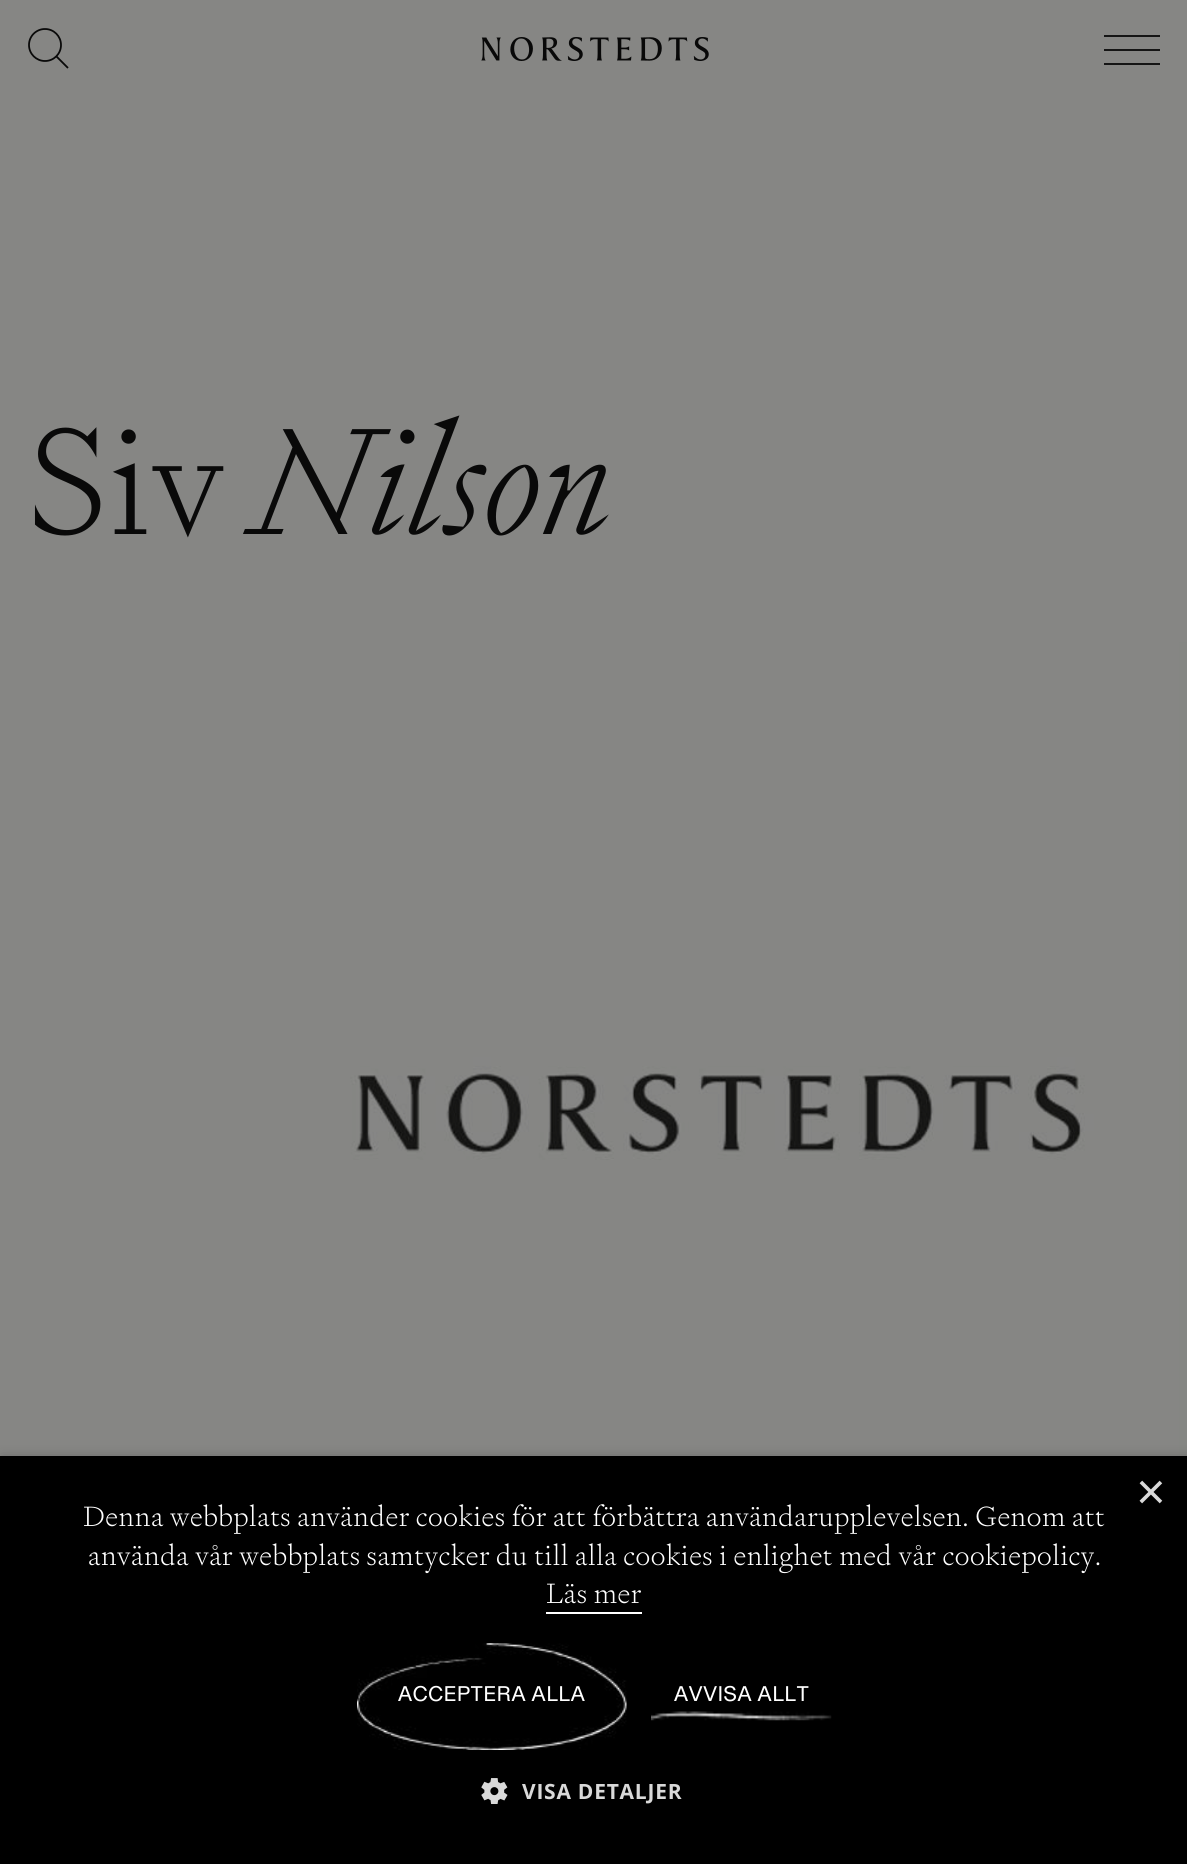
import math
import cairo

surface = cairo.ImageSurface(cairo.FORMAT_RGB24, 1187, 1864)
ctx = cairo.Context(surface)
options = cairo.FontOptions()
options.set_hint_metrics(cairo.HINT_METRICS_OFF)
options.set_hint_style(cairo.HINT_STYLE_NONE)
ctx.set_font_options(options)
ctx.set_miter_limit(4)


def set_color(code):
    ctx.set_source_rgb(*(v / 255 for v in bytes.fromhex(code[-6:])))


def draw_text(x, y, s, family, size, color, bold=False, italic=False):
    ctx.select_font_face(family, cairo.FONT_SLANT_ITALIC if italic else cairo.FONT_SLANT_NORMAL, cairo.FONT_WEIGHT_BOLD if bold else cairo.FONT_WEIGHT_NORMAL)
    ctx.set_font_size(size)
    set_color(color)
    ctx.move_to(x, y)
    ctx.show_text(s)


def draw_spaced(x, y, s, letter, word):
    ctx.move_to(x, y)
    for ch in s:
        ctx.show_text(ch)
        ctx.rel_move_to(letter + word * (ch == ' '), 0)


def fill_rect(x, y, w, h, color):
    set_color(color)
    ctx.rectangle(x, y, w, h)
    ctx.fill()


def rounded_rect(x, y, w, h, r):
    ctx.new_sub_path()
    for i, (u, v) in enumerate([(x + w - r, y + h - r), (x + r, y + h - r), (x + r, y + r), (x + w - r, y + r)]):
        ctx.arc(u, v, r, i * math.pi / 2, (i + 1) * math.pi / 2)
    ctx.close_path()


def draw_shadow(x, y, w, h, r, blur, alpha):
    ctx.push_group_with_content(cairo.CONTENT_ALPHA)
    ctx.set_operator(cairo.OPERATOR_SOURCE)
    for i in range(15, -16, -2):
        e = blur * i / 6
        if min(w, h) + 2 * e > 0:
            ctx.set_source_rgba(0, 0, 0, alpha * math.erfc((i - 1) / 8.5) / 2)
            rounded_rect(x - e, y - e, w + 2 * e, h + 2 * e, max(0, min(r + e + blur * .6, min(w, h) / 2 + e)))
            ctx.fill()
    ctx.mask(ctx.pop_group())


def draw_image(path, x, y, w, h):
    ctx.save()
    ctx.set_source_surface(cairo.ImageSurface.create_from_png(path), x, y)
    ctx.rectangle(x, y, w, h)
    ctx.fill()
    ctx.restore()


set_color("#868684")
ctx.paint()
ctx.arc(45, 45, 16, 0, 2 * math.pi)
set_color("#090909")
ctx.set_line_width(1.8)
ctx.stroke()
ctx.new_path()
ctx.move_to(56, 56)
ctx.line_to(68, 68)
ctx.stroke()
draw_image("assets/img1.png", 481, 37, 228, 24)
ctx.new_path()
ctx.move_to(1104, 36)
ctx.line_to(1160, 36)
ctx.move_to(1104, 50)
ctx.line_to(1160, 50)
ctx.move_to(1104, 64)
ctx.line_to(1160, 64)
ctx.stroke()
draw_text(28, 534, "Siv", "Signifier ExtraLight", 152, "#090909")
draw_text(251, 534, "Nilson", "Signifier ExtraLight", 152, "#090909", italic=True)
draw_image("assets/img2.png", 247, 642, 940, 814)
set_color("#000000")
draw_shadow(2, 1460, 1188, 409, 0, 7, 0.35)
fill_rect(0, 1456, 1187, 408, "#000000")
draw_text(1136, 1509, "×", "Liberation Sans", 51, "#d9d9d9")
ctx.select_font_face("Signifier ExtraLight")
ctx.set_font_size(28)
set_color("#ffffff")
draw_spaced(83, 1526, "Denna webbplats använder cookies för att förbättra användarupplevelsen. Genom att", 0.53, 0)
draw_spaced(88, 1565, "använda vår webbplats samtycker du till alla cookies i enlighet med vår cookiepolicy.", 0.53, 0)
draw_spaced(546, 1603, "Läs mer", 0.53, 0)
fill_rect(546, 1612, 96, 2, "#ffffff")
draw_image("assets/img3.png", 357, 1643, 270, 107)
ctx.select_font_face("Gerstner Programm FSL")
ctx.set_font_size(21)
draw_spaced(398, 1701, "ACCEPTERA ALLA", 0.75, 0)
draw_image("assets/img4.png", 651, 1711, 181, 10)
draw_spaced(674, 1701, "AVVISA ALLT", 0.75, 0)
draw_image("assets/img5.png", 481, 1778, 27, 26)
ctx.select_font_face("Open Sans", cairo.FONT_SLANT_NORMAL, cairo.FONT_WEIGHT_BOLD)
set_color("#d9d9d9")
draw_spaced(522, 1799, "VISA DETALJER", 0.75, 0)
surface.write_to_png("output.png")
